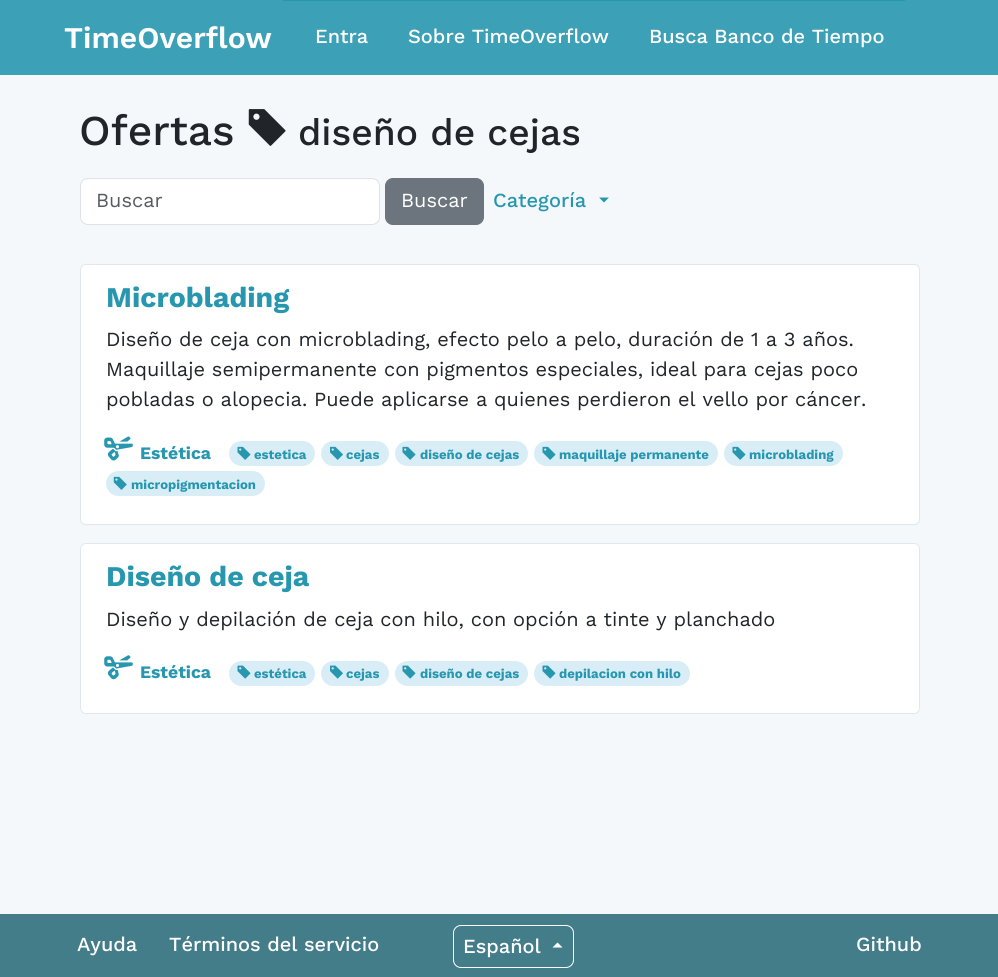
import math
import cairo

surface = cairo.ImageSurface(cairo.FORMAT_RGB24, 998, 977)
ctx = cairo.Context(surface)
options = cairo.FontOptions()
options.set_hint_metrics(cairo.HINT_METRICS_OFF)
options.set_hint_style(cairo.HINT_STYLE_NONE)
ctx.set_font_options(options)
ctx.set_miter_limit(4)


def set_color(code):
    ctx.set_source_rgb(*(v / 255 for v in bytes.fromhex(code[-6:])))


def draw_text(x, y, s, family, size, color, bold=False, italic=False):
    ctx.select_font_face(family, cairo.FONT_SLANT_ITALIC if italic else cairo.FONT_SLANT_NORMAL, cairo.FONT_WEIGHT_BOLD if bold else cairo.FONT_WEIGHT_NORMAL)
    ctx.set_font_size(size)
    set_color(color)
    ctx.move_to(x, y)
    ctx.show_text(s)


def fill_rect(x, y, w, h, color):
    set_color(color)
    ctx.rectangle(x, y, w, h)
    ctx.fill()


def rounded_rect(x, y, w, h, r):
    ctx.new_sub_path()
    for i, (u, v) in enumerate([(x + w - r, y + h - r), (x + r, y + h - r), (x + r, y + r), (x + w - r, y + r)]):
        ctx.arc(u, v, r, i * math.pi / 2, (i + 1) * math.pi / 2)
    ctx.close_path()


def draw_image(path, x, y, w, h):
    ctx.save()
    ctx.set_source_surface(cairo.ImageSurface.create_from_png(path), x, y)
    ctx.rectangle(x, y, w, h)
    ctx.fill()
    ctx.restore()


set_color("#f5f8fa")
ctx.paint()
fill_rect(0, 0, 998, 75, "#3ca1b7")
draw_text(64, 48, "TimeOverflow", "Work Sans SemiBold", 30, "#ffffff")
fill_rect(283, 0, 622, 1, "#2797af")
draw_text(315, 43, "Entra", "Work Sans Medium", 20, "#ffffff")
draw_text(408, 43, "Sobre TimeOverflow", "Work Sans Medium", 20, "#ffffff")
draw_text(649, 43, "Busca Banco de Tiempo", "Work Sans Medium", 20, "#ffffff")
draw_text(79, 145, "Ofertas", "Work Sans Medium", 42.5, "#212529")
draw_image("assets/img1.png", 248, 109, 38, 37)
draw_text(298, 145, "diseño de cejas", "Work Sans Medium", 37.25, "#212529")
set_color("#ffffff")
rounded_rect(81, 179, 298, 45, 6)
ctx.fill()
rounded_rect(80.5, 178.5, 299, 46, 7.5)
set_color("#dee2e6")
ctx.set_line_width(1)
ctx.stroke()
draw_text(96, 207, "Buscar", "Work Sans", 20, "#595c5f")
set_color("#6c757d")
rounded_rect(385.5, 178.5, 98, 46, 7.5)
ctx.fill_preserve()
ctx.stroke()
draw_text(401, 207, "Buscar", "Work Sans", 20, "#ffffff")
draw_text(493, 207, "Categoría", "Work Sans Medium", 20, "#2797af")
ctx.new_path()
ctx.move_to(599, 197.5)
ctx.line_to(609, 197.5)
ctx.line_to(604, 202.5)
ctx.close_path()
ctx.fill()
set_color("#ffffff")
rounded_rect(80.5, 264.5, 839, 260, 5.5)
ctx.fill_preserve()
set_color("#e1e8ed")
ctx.stroke()
draw_text(106, 307, "Microblading", "Work Sans", 28.5, "#2797af", bold=True)
draw_text(106, 346, "Diseño de ceja con microblading, efecto pelo a pelo, duración de 1 a 3 años.", "Work Sans", 20, "#212529")
draw_text(106, 376, "Maquillaje semipermanente con pigmentos especiales, ideal para cejas poco", "Work Sans", 20, "#212529")
draw_text(106, 406, "pobladas o alopecia. Puede aplicarse a quienes perdieron el vello por cáncer.", "Work Sans", 20, "#212529")
draw_image("assets/img2.png", 104, 436, 29, 25)
draw_text(140, 459, "Estética", "Work Sans", 17.5, "#2797af", bold=True)
set_color("#d9edf7")
rounded_rect(229, 441, 86, 25, 12.5)
ctx.fill()
draw_image("assets/img3.png", 237, 446, 14, 14)
draw_text(254, 459, "estetica", "Work Sans", 13.1, "#2797af", bold=True)
set_color("#d9edf7")
rounded_rect(321, 441, 68, 25, 12.5)
ctx.fill()
draw_image("assets/img4.png", 330, 446, 13, 14)
draw_text(346, 459, "cejas", "Work Sans", 13.1, "#2797af", bold=True)
set_color("#d9edf7")
rounded_rect(395, 441, 133, 25, 12.5)
ctx.fill()
draw_image("assets/img3.png", 402, 446, 14, 14)
draw_text(420, 459, "diseño de cejas", "Work Sans", 13.1, "#2797af", bold=True)
set_color("#d9edf7")
rounded_rect(534, 441, 184, 25, 12.5)
ctx.fill()
draw_image("assets/img3.png", 542, 446, 14, 14)
draw_text(559, 459, "maquillaje permanente", "Work Sans", 13.1, "#2797af", bold=True)
set_color("#d9edf7")
rounded_rect(724, 441, 119, 25, 12.5)
ctx.fill()
draw_image("assets/img3.png", 732, 446, 14, 14)
draw_text(749, 459, "microblading", "Work Sans", 13.1, "#2797af", bold=True)
set_color("#d9edf7")
rounded_rect(106, 471, 159, 25, 12.5)
ctx.fill()
draw_image("assets/img5.png", 113, 476, 14, 14)
draw_text(131, 489, "micropigmentacion", "Work Sans", 13.1, "#2797af", bold=True)
set_color("#ffffff")
rounded_rect(80.5, 543.5, 839, 170, 5.5)
ctx.fill_preserve()
set_color("#e1e8ed")
ctx.stroke()
draw_text(106, 586, "Diseño de ceja", "Work Sans", 28.5, "#2797af", bold=True)
draw_text(106, 626, "Diseño y depilación de ceja con hilo, con opción a tinte y planchado", "Work Sans", 20, "#212529")
draw_image("assets/img6.png", 104, 655, 29, 25)
draw_text(140, 678, "Estética", "Work Sans", 17.5, "#2797af", bold=True)
set_color("#d9edf7")
rounded_rect(229, 661, 86, 25, 12.5)
ctx.fill()
draw_image("assets/img7.png", 237, 665, 14, 14)
draw_text(254, 678, "estética", "Work Sans", 13.1, "#2797af", bold=True)
set_color("#d9edf7")
rounded_rect(321, 661, 68, 25, 12.5)
ctx.fill()
draw_image("assets/img8.png", 330, 665, 13, 14)
draw_text(346, 678, "cejas", "Work Sans", 13.1, "#2797af", bold=True)
set_color("#d9edf7")
rounded_rect(395, 661, 133, 25, 12.5)
ctx.fill()
draw_image("assets/img7.png", 402, 665, 14, 14)
draw_text(420, 678, "diseño de cejas", "Work Sans", 13.1, "#2797af", bold=True)
set_color("#d9edf7")
rounded_rect(534, 661, 156, 25, 12.5)
ctx.fill()
draw_image("assets/img7.png", 542, 665, 14, 14)
draw_text(559, 678, "depilacion con hilo", "Work Sans", 13.1, "#2797af", bold=True)
fill_rect(0, 914, 998, 63, "#437d89")
draw_text(77, 951, "Ayuda", "Work Sans Medium", 20, "#ffffff")
draw_text(169, 951, "Términos del servicio", "Work Sans Medium", 20, "#ffffff")
rounded_rect(453.5, 925.5, 120, 42, 7.5)
ctx.stroke()
draw_text(463, 953, "Español", "Work Sans Medium", 20, "#ffffff")
ctx.new_path()
ctx.move_to(562.5, 947.5)
ctx.line_to(552.5, 947.5)
ctx.line_to(557.5, 942.5)
ctx.close_path()
ctx.fill()
draw_text(856, 951, "Github", "Work Sans Medium", 20, "#ffffff")
surface.write_to_png("output.png")
